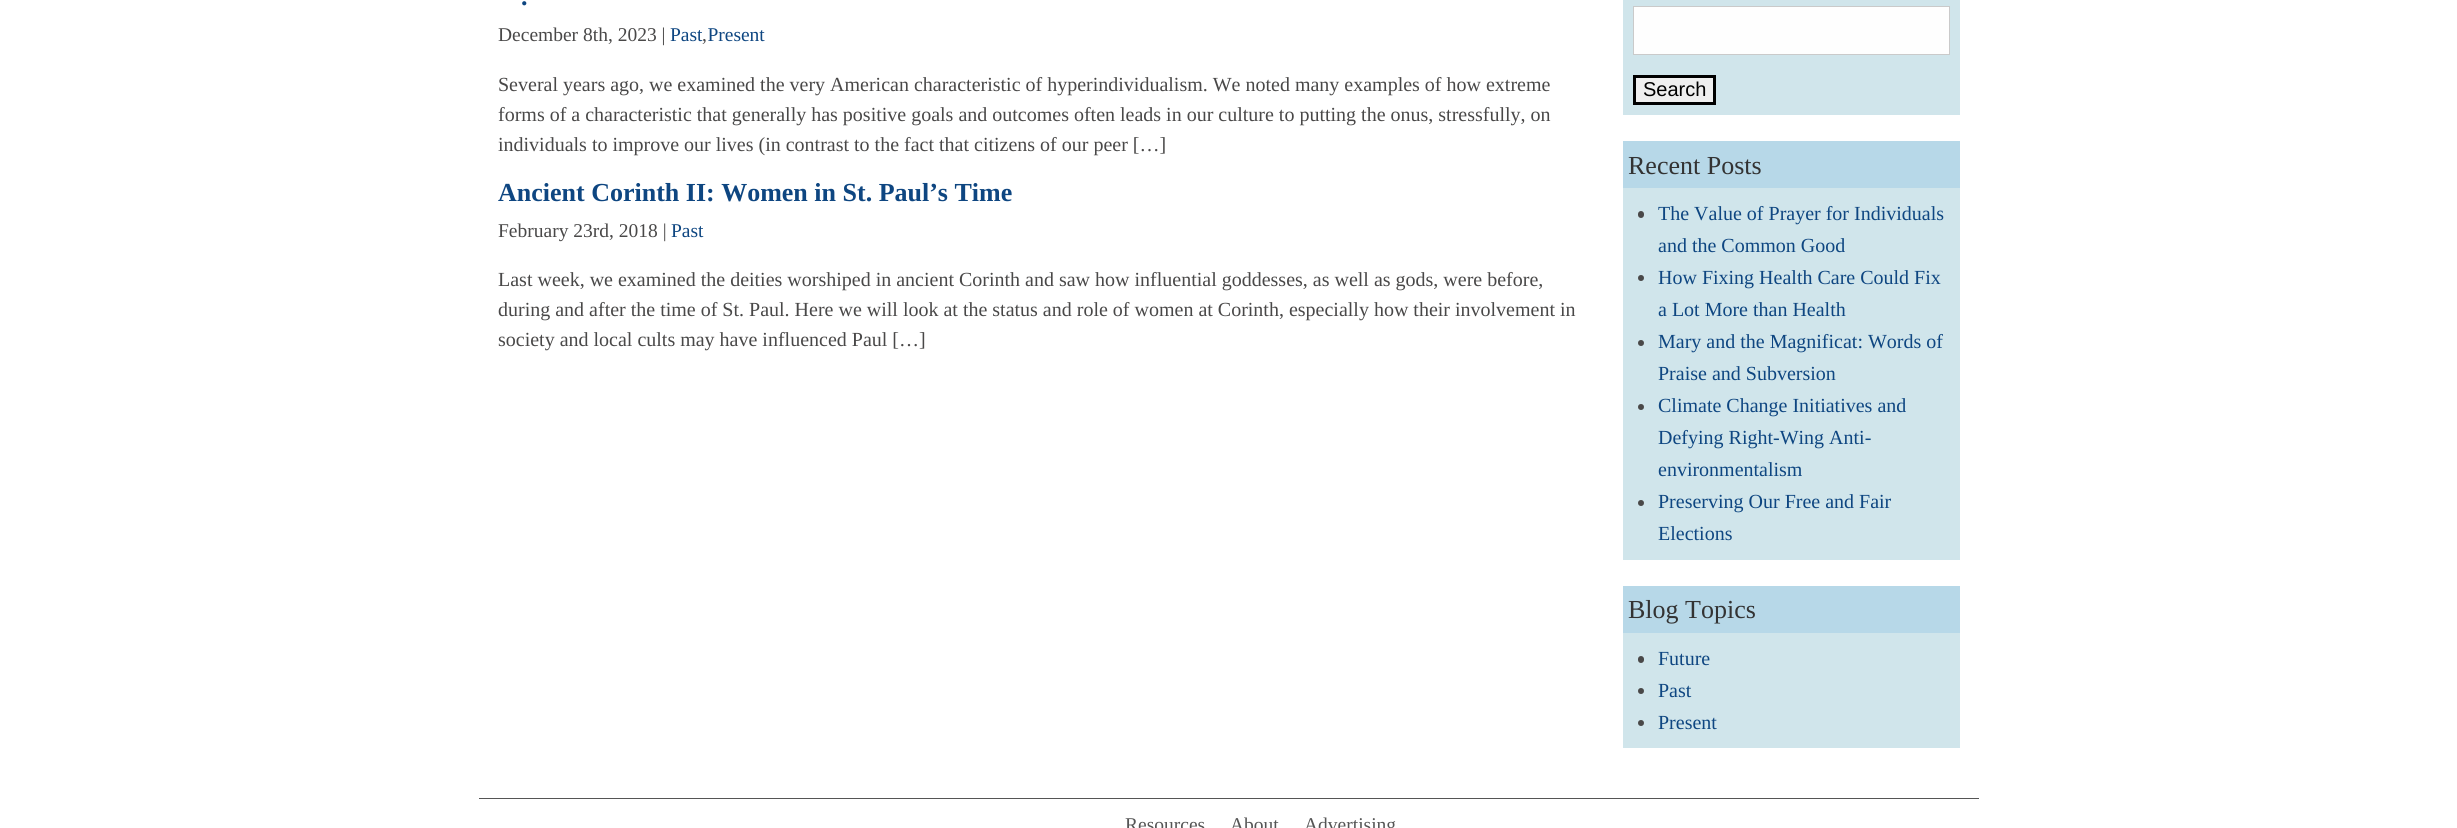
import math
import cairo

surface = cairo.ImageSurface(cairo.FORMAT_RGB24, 2457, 828)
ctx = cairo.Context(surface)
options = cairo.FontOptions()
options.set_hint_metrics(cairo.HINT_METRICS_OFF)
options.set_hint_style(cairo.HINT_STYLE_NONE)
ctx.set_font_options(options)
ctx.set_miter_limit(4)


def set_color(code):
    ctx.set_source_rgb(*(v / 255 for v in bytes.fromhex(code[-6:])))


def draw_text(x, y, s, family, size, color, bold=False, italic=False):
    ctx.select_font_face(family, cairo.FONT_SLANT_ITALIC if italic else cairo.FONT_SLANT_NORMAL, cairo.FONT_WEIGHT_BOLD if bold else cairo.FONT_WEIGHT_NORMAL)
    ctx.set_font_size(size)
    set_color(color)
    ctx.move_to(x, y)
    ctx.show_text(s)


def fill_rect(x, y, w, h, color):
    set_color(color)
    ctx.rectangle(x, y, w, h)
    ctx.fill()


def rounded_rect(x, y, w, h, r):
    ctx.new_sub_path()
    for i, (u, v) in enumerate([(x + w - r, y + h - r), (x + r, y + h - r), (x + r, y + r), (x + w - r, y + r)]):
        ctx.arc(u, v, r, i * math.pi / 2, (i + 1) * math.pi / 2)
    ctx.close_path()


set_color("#ffffff")
ctx.paint()
draw_text(521, 5, ".", "Liberation Serif", 26, "#0e4681", bold=True)
draw_text(498, 41, "December 8th, 2023 |", "Liberation Serif", 19.5, "#494848")
draw_text(670, 41, "Past Present", "Liberation Serif", 19.5, "#0e4681")
draw_text(702, 41, ",", "Liberation Serif", 19.5, "#494848")
draw_text(498, 91, "Several years ago, we examined the very American characteristic of hyperindividualism. We noted many examples of how extreme", "Liberation Serif", 20, "#494848")
draw_text(498, 121, "forms of a characteristic that generally has positive goals and outcomes often leads in our culture to putting the onus, stressfully, on", "Liberation Serif", 20, "#494848")
draw_text(498, 151, "individuals to improve our lives (in contrast to the fact that citizens of our peer […]", "Liberation Serif", 20, "#494848")
draw_text(498, 201, "Ancient Corinth II: Women in St. Paul’s Time", "Liberation Serif", 26, "#0e4681", bold=True)
draw_text(498, 237, "February 23rd, 2018 |", "Liberation Serif", 19.5, "#494848")
draw_text(671, 237, "Past", "Liberation Serif", 19.5, "#0e4681")
draw_text(498, 286, "Last week, we examined the deities worshiped in ancient Corinth and saw how influential goddesses, as well as gods, were before,", "Liberation Serif", 20, "#494848")
draw_text(498, 316, "during and after the time of St. Paul. Here we will look at the status and role of women at Corinth, especially how their involvement in", "Liberation Serif", 20, "#494848")
draw_text(498, 346, "society and local cults may have influenced Paul […]", "Liberation Serif", 20, "#494848")
fill_rect(1623, 0, 337, 115, "#d0e5eb")
set_color("#fefefe")
ctx.rectangle(1633.5, 6.5, 316, 48)
ctx.fill_preserve()
set_color("#cacaca")
ctx.set_line_width(1)
ctx.stroke()
set_color("#efefef")
ctx.rectangle(1634.5, 76.5, 80, 27)
ctx.fill_preserve()
set_color("#000000")
ctx.set_line_width(3)
ctx.stroke()
draw_text(1643, 96, "Search", "Liberation Sans", 20, "#000000")
fill_rect(1623, 188, 337, 372, "#d0e5eb")
fill_rect(1623, 141, 337, 47, "#b7d8e8")
draw_text(1628, 174, "Recent Posts", "Liberation Serif", 26, "#333333")
set_color("#494848")
rounded_rect(1638, 211, 6, 7, 3)
ctx.fill()
draw_text(1658, 220, "The Value of Prayer for Individuals", "Liberation Serif", 20, "#0e4681")
draw_text(1658, 252, "and the Common Good", "Liberation Serif", 20, "#0e4681")
set_color("#494848")
ctx.new_path()
ctx.arc(1641, 278, 3, 0, 2 * math.pi)
ctx.fill()
draw_text(1658, 284, "How Fixing Health Care Could Fix", "Liberation Serif", 20, "#0e4681")
draw_text(1658, 316, "a Lot More than Health", "Liberation Serif", 20, "#0e4681")
set_color("#494848")
ctx.new_path()
ctx.arc(1641, 343, 3, 0, 2 * math.pi)
ctx.fill()
draw_text(1658, 348, "Mary and the Magnificat: Words of", "Liberation Serif", 20, "#0e4681")
draw_text(1658, 380, "Praise and Subversion", "Liberation Serif", 20, "#0e4681")
set_color("#494848")
ctx.new_path()
ctx.arc(1641, 407, 3, 0, 2 * math.pi)
ctx.fill()
draw_text(1658, 412, "Climate Change Initiatives and", "Liberation Serif", 20, "#0e4681")
draw_text(1658, 444, "Defying Right-Wing Anti-", "Liberation Serif", 20, "#0e4681")
draw_text(1658, 476, "environmentalism", "Liberation Serif", 20, "#0e4681")
set_color("#494848")
ctx.new_path()
ctx.arc(1641, 503, 3, 0, 2 * math.pi)
ctx.fill()
draw_text(1658, 508, "Preserving Our Free and Fair", "Liberation Serif", 20, "#0e4681")
draw_text(1658, 540, "Elections", "Liberation Serif", 20, "#0e4681")
fill_rect(1623, 633, 337, 115, "#d0e5eb")
fill_rect(1623, 586, 337, 47, "#b7d8e8")
draw_text(1628, 618, "Blog Topics", "Liberation Serif", 26, "#333333")
set_color("#494848")
rounded_rect(1638, 656, 6, 7, 3)
ctx.fill()
draw_text(1658, 665, "Future", "Liberation Serif", 20, "#0e4681")
set_color("#494848")
ctx.new_path()
ctx.arc(1641, 691, 3, 0, 2 * math.pi)
ctx.fill()
draw_text(1658, 697, "Past", "Liberation Serif", 20, "#0e4681")
set_color("#494848")
ctx.new_path()
ctx.arc(1641, 723, 3, 0, 2 * math.pi)
ctx.fill()
draw_text(1658, 729, "Present", "Liberation Serif", 20, "#0e4681")
fill_rect(479, 798, 1500, 1, "#555555")
draw_text(1125, 831, "Resources", "Liberation Serif", 19.5, "#555555")
draw_text(1230, 831, "About", "Liberation Serif", 19.5, "#555555")
draw_text(1304, 831, "Advertising", "Liberation Serif", 19.5, "#555555")
surface.write_to_png("output.png")
